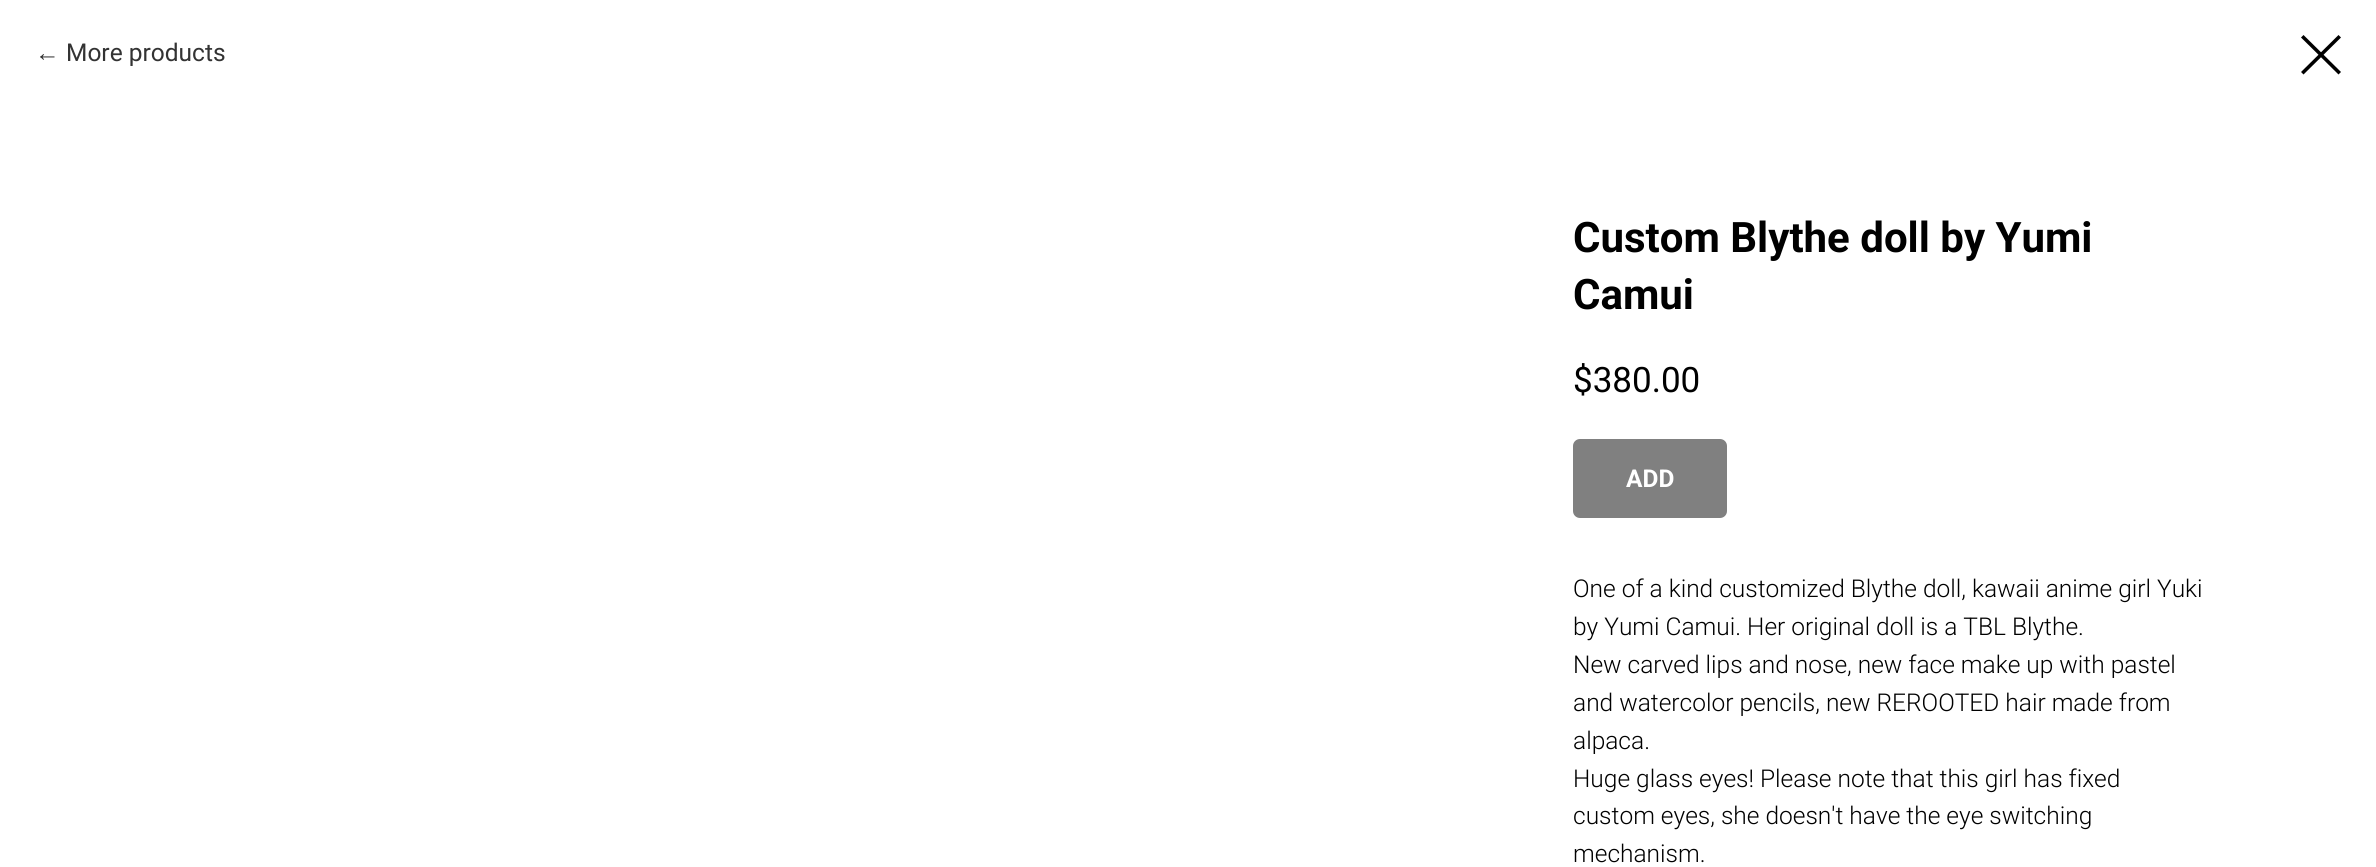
import math
import cairo

surface = cairo.ImageSurface(cairo.FORMAT_RGB24, 2376, 867)
ctx = cairo.Context(surface)
options = cairo.FontOptions()
options.set_hint_metrics(cairo.HINT_METRICS_OFF)
options.set_hint_style(cairo.HINT_STYLE_NONE)
ctx.set_font_options(options)
ctx.set_miter_limit(4)


def set_color(code):
    ctx.set_source_rgb(*(v / 255 for v in bytes.fromhex(code[-6:])))


def draw_text(x, y, s, family, size, color, bold=False, italic=False):
    ctx.select_font_face(family, cairo.FONT_SLANT_ITALIC if italic else cairo.FONT_SLANT_NORMAL, cairo.FONT_WEIGHT_BOLD if bold else cairo.FONT_WEIGHT_NORMAL)
    ctx.set_font_size(size)
    set_color(color)
    ctx.move_to(x, y)
    ctx.show_text(s)


def rounded_rect(x, y, w, h, r):
    ctx.new_sub_path()
    for i, (u, v) in enumerate([(x + w - r, y + h - r), (x + r, y + h - r), (x + r, y + r), (x + w - r, y + r)]):
        ctx.arc(u, v, r, i * math.pi / 2, (i + 1) * math.pi / 2)
    ctx.close_path()


set_color("#ffffff")
ctx.paint()
draw_text(35, 61, "←", "Liberation Sans", 24.5, "#333333")
draw_text(66, 61, "More products", "Roboto", 24.5, "#333333")
set_color("#000000")
ctx.set_fill_rule(cairo.FILL_RULE_EVEN_ODD)
ctx.new_path()
ctx.move_to(2301, 37.5)
ctx.line_to(2303.5, 35)
ctx.line_to(2341, 72)
ctx.line_to(2338.5, 74.5)
ctx.close_path()
ctx.fill()
ctx.new_path()
ctx.move_to(2338.5, 35)
ctx.line_to(2341, 37.5)
ctx.line_to(2303.5, 74.5)
ctx.line_to(2301, 72)
ctx.close_path()
ctx.fill()
draw_text(1573, 252, "Custom Blythe doll by Yumi", "Roboto", 42, "#000000", bold=True)
draw_text(1573, 309, "Camui", "Roboto", 42, "#000000", bold=True)
draw_text(1573, 392, "$380.00", "Roboto", 35, "#000000")
set_color("#808080")
rounded_rect(1573, 439, 154, 79, 7)
ctx.fill()
draw_text(1626, 487, "ADD", "Roboto", 24.5, "#ffffff", bold=True)
draw_text(1573, 597, "One of a kind customized Blythe doll, kawaii anime girl Yuki", "Roboto Light", 24.5, "#000000")
draw_text(1573, 635, "by Yumi Camui. Her original doll is a TBL Blythe.", "Roboto Light", 24.5, "#000000")
draw_text(1573, 673, "New carved lips and nose, new face make up with pastel", "Roboto Light", 24.5, "#000000")
draw_text(1573, 711, "and watercolor pencils, new REROOTED hair made from", "Roboto Light", 24.5, "#000000")
draw_text(1573, 749, "alpaca.", "Roboto Light", 24.5, "#000000")
draw_text(1573, 787, "Huge glass eyes! Please note that this girl has fixed", "Roboto Light", 24.5, "#000000")
draw_text(1573, 824, "custom eyes, she doesn't have the eye switching", "Roboto Light", 24.5, "#000000")
draw_text(1573, 862, "mechanism.", "Roboto Light", 24.5, "#000000")
surface.write_to_png("output.png")
